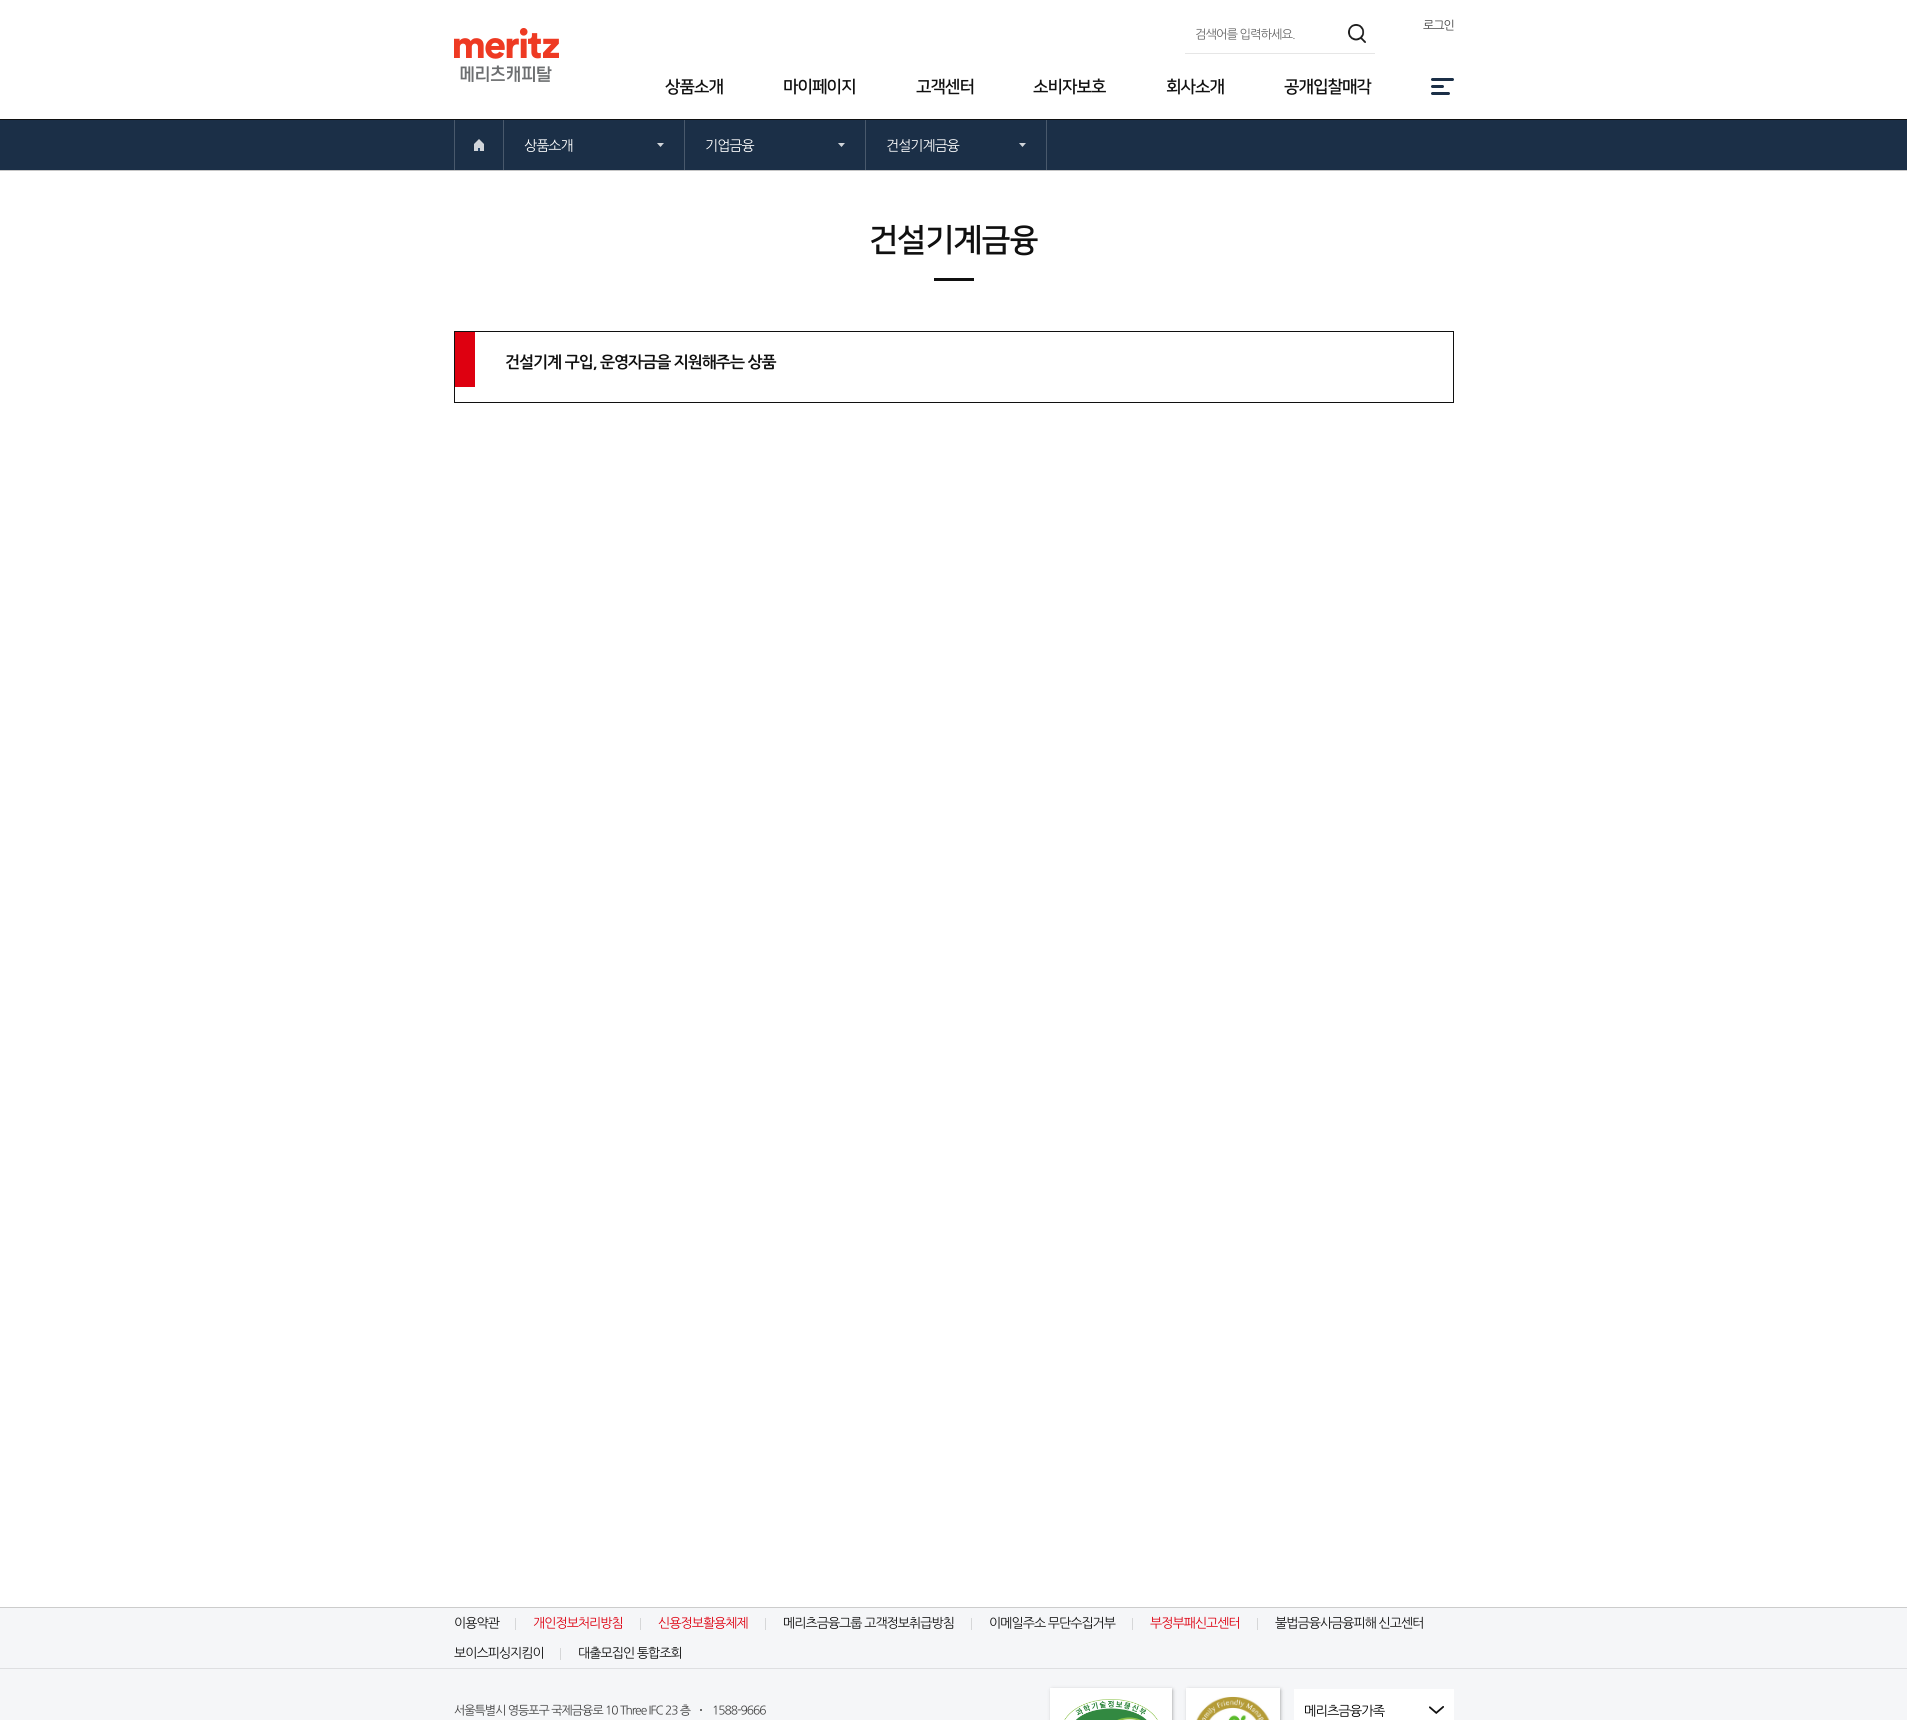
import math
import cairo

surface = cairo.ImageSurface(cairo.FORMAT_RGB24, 1907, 1720)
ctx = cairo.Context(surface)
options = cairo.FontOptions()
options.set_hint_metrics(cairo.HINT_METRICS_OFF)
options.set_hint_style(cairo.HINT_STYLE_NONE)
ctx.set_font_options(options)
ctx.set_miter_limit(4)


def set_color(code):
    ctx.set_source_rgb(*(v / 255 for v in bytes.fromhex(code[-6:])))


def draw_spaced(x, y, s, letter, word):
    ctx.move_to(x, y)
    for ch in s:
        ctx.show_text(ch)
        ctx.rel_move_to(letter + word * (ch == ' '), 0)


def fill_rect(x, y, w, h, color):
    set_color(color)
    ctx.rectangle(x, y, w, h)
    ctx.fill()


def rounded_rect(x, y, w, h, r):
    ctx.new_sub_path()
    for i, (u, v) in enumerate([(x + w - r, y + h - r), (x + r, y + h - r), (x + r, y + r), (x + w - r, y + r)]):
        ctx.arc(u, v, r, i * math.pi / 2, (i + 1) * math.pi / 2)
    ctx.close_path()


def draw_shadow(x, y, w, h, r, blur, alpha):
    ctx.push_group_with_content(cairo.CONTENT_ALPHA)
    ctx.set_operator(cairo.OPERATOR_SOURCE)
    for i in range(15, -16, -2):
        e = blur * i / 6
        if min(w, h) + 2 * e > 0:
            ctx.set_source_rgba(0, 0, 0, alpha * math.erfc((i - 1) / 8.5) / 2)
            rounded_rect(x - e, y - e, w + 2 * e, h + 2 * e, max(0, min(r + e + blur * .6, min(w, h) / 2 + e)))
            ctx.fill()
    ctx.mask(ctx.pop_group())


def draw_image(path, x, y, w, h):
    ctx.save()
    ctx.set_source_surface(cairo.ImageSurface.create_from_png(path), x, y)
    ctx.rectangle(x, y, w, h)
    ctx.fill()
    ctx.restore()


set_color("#ffffff")
ctx.paint()
draw_image("assets/img1.png", 454, 28, 105, 54)
ctx.select_font_face("NanumGothic")
ctx.set_font_size(12)
set_color("#404040")
draw_spaced(1423, 29, "로그인", -1, 0)
fill_rect(1185, 53, 190, 1, "#e6e6e6")
ctx.set_font_size(12.25)
set_color("#666666")
draw_spaced(1195, 38, "검색어를 입력하세요.", -1, 0)
draw_image("assets/img2.png", 1348, 24, 18, 19)
ctx.select_font_face("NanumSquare", cairo.FONT_SLANT_NORMAL, cairo.FONT_WEIGHT_BOLD)
ctx.set_font_size(17)
set_color("#101010")
draw_spaced(665, 92, "상품소개", -1, 0)
draw_spaced(783, 92, "마이페이지", -1, 0)
draw_spaced(916, 92, "고객센터", -1, 0)
draw_spaced(1033, 92, "소비자보호", -1, 0)
draw_spaced(1166, 92, "회사소개", -1, 0)
draw_spaced(1284, 92, "공개입찰매각", -1, 0)
draw_image("assets/img3.png", 1431, 78, 23, 17)
fill_rect(0, 120, 1907, 50, "#1b2f47")
fill_rect(0, 119, 1907, 1, "#101010")
fill_rect(0, 170, 1907, 1, "#c6c6c6")
fill_rect(503, 120, 1, 50, "#49596c")
fill_rect(454, 120, 1, 50, "#49596c")
draw_image("assets/img4.png", 474, 139, 10, 12)
fill_rect(684, 120, 1, 50, "#49596c")
draw_image("assets/img5.png", 657, 143, 7, 4)
ctx.select_font_face("NanumGothic")
ctx.set_font_size(14)
set_color("#ffffff")
draw_spaced(524, 150, "상품소개", -1, 0)
fill_rect(865, 120, 1, 50, "#49596c")
draw_image("assets/img5.png", 838, 143, 7, 4)
set_color("#ffffff")
draw_spaced(705, 150, "기업금융", -1, 0)
fill_rect(1046, 120, 1, 50, "#49596c")
draw_image("assets/img5.png", 1019, 143, 7, 4)
set_color("#ffffff")
draw_spaced(886, 150, "건설기계금융", -1, 0)
fill_rect(934, 278, 40, 3, "#101010")
ctx.select_font_face("NanumSquare", cairo.FONT_SLANT_NORMAL, cairo.FONT_WEIGHT_BOLD)
ctx.set_font_size(32)
draw_spaced(869, 250, "건설기계금융", -1, 0)
fill_rect(455, 332, 20, 55, "#de0010")
ctx.rectangle(454.5, 331.5, 999, 71)
set_color("#101010")
ctx.set_line_width(1)
ctx.stroke()
ctx.select_font_face("NanumGothic", cairo.FONT_SLANT_NORMAL, cairo.FONT_WEIGHT_BOLD)
ctx.set_font_size(16)
draw_spaced(505, 367, "건설기계 구입, 운영자금을 지원해주는 상품", -1, 0)
fill_rect(0, 1608, 1907, 112, "#f5f6f8")
fill_rect(0, 1607, 1907, 1, "#cccccc")
ctx.select_font_face("NanumGothic")
ctx.set_font_size(13)
set_color("#101010")
draw_spaced(454, 1627, "이용약관", -1, 0)
fill_rect(515, 1618, 1, 12, "#d6d7d8")
set_color("#de0010")
draw_spaced(533, 1627, "개인정보처리방침", -1, 0)
fill_rect(640, 1618, 1, 12, "#d6d7d8")
set_color("#de0010")
draw_spaced(658, 1627, "신용정보활용체제", -1, 0)
fill_rect(765, 1618, 1, 12, "#d6d7d8")
set_color("#101010")
draw_spaced(783, 1627, "메리츠금융그룹 고객정보취급방침", -1, 0)
fill_rect(971, 1618, 1, 12, "#d6d7d8")
set_color("#101010")
draw_spaced(989, 1627, "이메일주소 무단수집거부", -1, 0)
fill_rect(1132, 1618, 1, 12, "#d6d7d8")
set_color("#de0010")
draw_spaced(1150, 1627, "부정부패신고센터", -1, 0)
fill_rect(1257, 1618, 1, 12, "#d6d7d8")
set_color("#101010")
draw_spaced(1275, 1627, "불법금융사금융피해 신고센터", -1, 0)
draw_spaced(454, 1657, "보이스피싱지킴이", -1, 0)
fill_rect(560, 1648, 1, 12, "#d6d7d8")
set_color("#101010")
draw_spaced(578, 1657, "대출모집인 통합조회", -1, 0)
fill_rect(0, 1668, 1907, 1, "#dedfe1")
ctx.set_font_size(12)
set_color("#404040")
draw_spaced(454, 1714, "서울특별시 영등포구 국제금융로 10 Three IFC 23 층", -1, 0)
fill_rect(700, 1709, 2, 2, "#6d6e6e")
set_color("#404040")
draw_spaced(712, 1714, "1588-9666", -1, 0)
set_color("#000000")
draw_shadow(1052, 1690, 120, 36, 0, 2, 0.42)
fill_rect(1051, 1689, 120, 31, "#ffffff")
draw_image("assets/img6.png", 1064, 1699, 94, 21)
ctx.rectangle(1050.5, 1688.5, 121, 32)
ctx.stroke()
set_color("#000000")
draw_shadow(1188, 1690, 92, 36, 0, 2, 0.42)
fill_rect(1187, 1689, 92, 31, "#ffffff")
draw_image("assets/img7.png", 1196, 1696, 74, 24)
ctx.rectangle(1186.5, 1688.5, 93, 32)
ctx.stroke()
fill_rect(1294, 1689, 160, 31, "#ffffff")
draw_image("assets/img8.png", 1429, 1706, 15, 8)
ctx.set_font_size(13.25)
set_color("#000000")
draw_spaced(1304, 1715, "메리츠금융가족", -1, 0)
surface.write_to_png("output.png")
